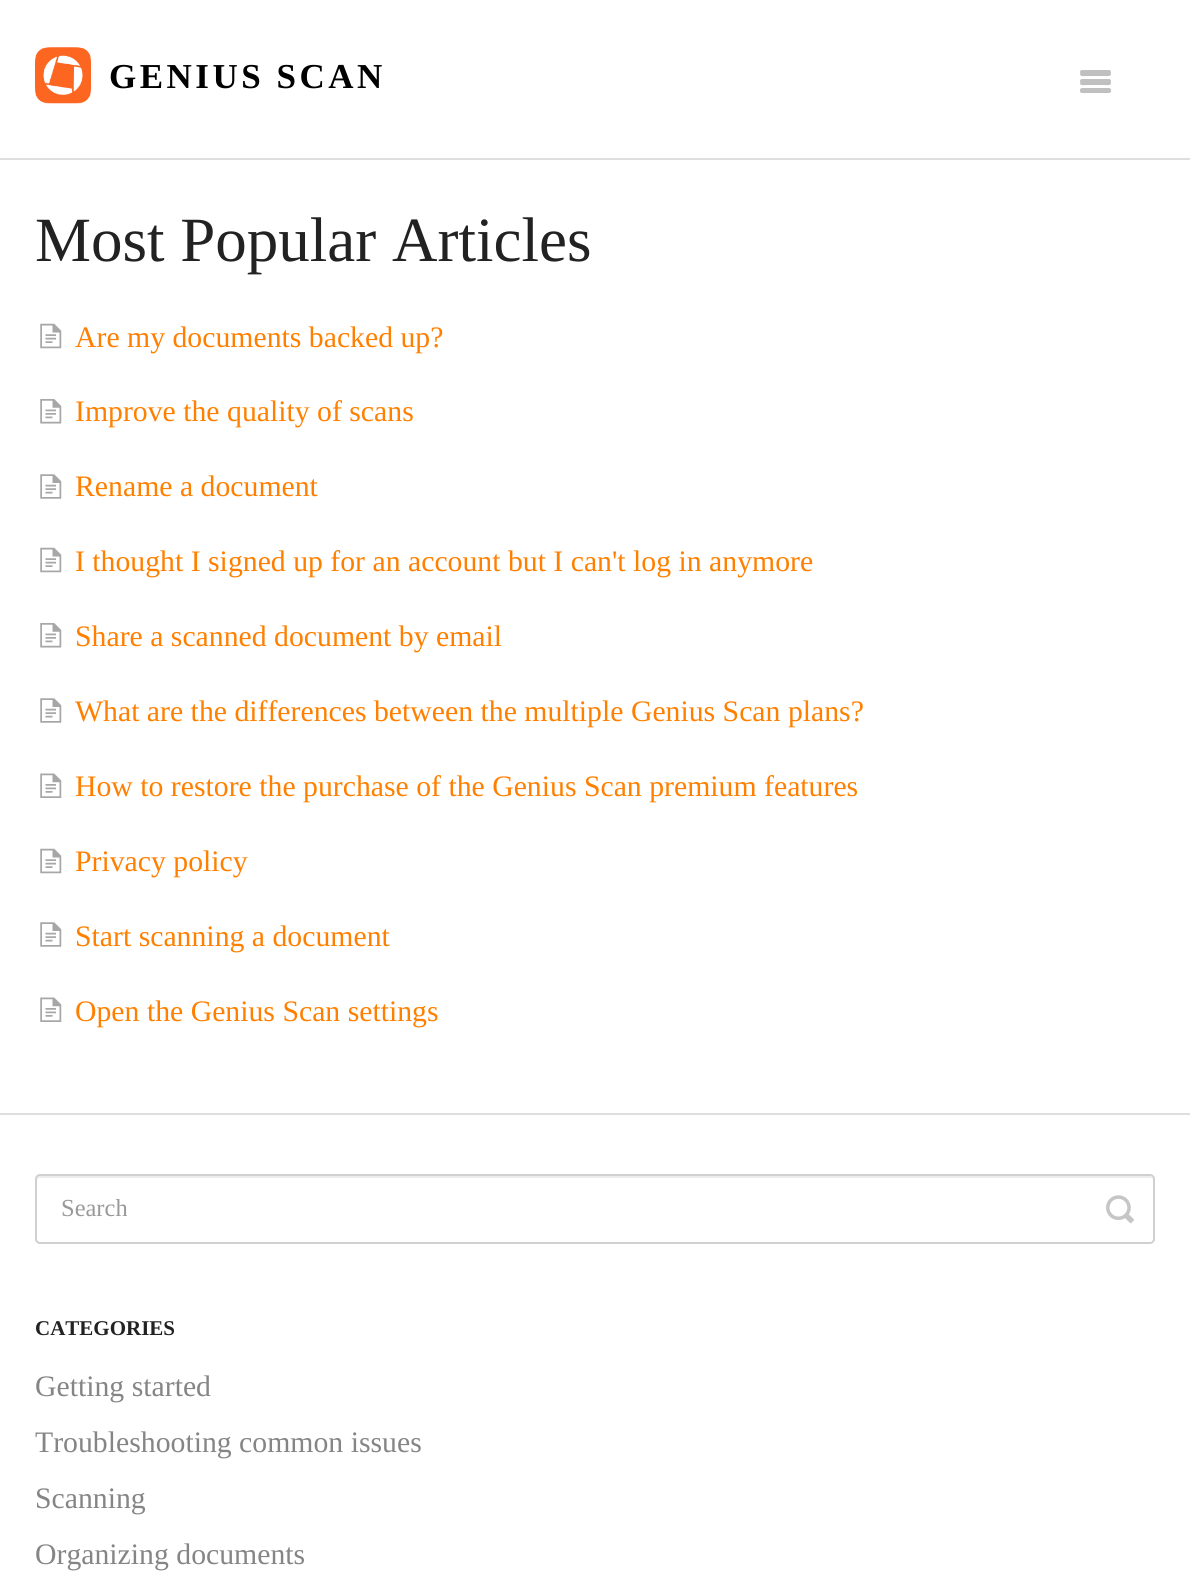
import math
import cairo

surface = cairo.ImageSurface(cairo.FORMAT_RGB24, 1190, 1571)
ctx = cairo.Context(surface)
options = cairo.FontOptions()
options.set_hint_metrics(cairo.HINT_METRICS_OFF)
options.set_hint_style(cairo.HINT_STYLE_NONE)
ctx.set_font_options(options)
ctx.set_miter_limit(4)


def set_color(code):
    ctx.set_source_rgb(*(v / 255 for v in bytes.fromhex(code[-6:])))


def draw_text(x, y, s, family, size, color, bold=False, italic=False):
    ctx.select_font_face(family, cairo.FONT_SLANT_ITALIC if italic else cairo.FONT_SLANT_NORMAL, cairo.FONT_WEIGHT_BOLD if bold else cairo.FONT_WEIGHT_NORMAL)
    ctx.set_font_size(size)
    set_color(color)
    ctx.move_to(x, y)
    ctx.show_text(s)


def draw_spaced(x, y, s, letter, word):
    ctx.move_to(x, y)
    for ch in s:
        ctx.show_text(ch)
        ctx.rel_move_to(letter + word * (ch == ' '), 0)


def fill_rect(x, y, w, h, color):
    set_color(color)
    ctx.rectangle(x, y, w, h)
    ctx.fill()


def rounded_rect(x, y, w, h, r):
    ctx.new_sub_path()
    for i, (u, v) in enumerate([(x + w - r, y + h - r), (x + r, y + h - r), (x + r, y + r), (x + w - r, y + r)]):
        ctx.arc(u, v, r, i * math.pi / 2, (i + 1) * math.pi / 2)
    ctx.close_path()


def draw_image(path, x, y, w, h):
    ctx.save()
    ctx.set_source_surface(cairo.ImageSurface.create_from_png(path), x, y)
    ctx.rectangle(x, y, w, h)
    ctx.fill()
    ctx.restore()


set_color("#ffffff")
ctx.paint()
draw_image("assets/img1.png", 35, 47, 56, 57)
ctx.select_font_face("Liberation Serif", cairo.FONT_SLANT_NORMAL, cairo.FONT_WEIGHT_BOLD)
ctx.set_font_size(35)
set_color("#000000")
draw_spaced(109, 88, "GENIUS SCAN", 3.5, 0)
set_color("#bfbfbf")
ctx.new_path()
ctx.move_to(1080.5, 73)
ctx.curve_to(1078, 77, 1086, 76, 1086.5, 76)
ctx.line_to(1104.5, 76)
ctx.curve_to(1105, 76, 1113, 77, 1110.5, 73)
ctx.line_to(1109.5, 73.5)
ctx.line_to(1081.5, 73.5)
ctx.close_path()
ctx.fill()
set_color("#c0c0c0")
rounded_rect(1080, 70, 31, 4, 2)
ctx.fill()
set_color("#bfbfbf")
ctx.new_path()
ctx.move_to(1080.5, 82)
ctx.line_to(1080, 83.5)
ctx.curve_to(1080.5, 86, 1085.5, 85, 1086.5, 85)
ctx.line_to(1104.5, 85)
ctx.curve_to(1105.5, 85, 1110.5, 86, 1111, 83.5)
ctx.line_to(1110.5, 82)
ctx.curve_to(1109.5, 82.5, 1081.5, 82.5, 1080.5, 82)
ctx.close_path()
ctx.fill()
set_color("#c0c0c0")
rounded_rect(1080, 79, 31, 4, 2)
ctx.fill()
set_color("#bfbfbf")
ctx.new_path()
ctx.move_to(1080, 90.5)
ctx.curve_to(1079, 94, 1085.5, 93, 1086.5, 93)
ctx.line_to(1104.5, 93)
ctx.curve_to(1105.5, 93, 1112, 94, 1111, 90.5)
ctx.line_to(1109.5, 91)
ctx.line_to(1081.5, 91)
ctx.close_path()
ctx.fill()
set_color("#c0c0c0")
rounded_rect(1080, 88, 31, 4, 2)
ctx.fill()
fill_rect(0, 158, 1190, 2, "#dedede")
fill_rect(0, 1113, 1190, 2, "#dedede")
draw_text(35, 261, "Most Popular Articles", "Liberation Serif", 63, "#222222")
draw_image("assets/img2.png", 40, 323, 22, 26)
draw_text(75, 347, "Are my documents backed up?", "Liberation Serif", 29.75, "#ff8000")
draw_image("assets/img3.png", 40, 399, 22, 25)
draw_text(75, 421, "Improve the quality of scans", "Liberation Serif", 29.75, "#ff8000")
draw_image("assets/img4.png", 40, 474, 22, 25)
draw_text(75, 496, "Rename a document", "Liberation Serif", 29.75, "#ff8000")
draw_image("assets/img2.png", 40, 547, 22, 26)
draw_text(75, 571, "I thought I signed up for an account but I can't log in anymore", "Liberation Serif", 29.75, "#ff8000")
draw_image("assets/img3.png", 40, 623, 22, 25)
draw_text(75, 646, "Share a scanned document by email", "Liberation Serif", 29.75, "#ff8000")
draw_image("assets/img4.png", 40, 698, 22, 25)
draw_text(75, 721, "What are the differences between the multiple Genius Scan plans?", "Liberation Serif", 29.75, "#ff8000")
draw_image("assets/img5.png", 40, 773, 22, 25)
draw_text(75, 796, "How to restore the purchase of the Genius Scan premium features", "Liberation Serif", 29.75, "#ff8000")
draw_image("assets/img2.png", 40, 848, 22, 26)
draw_text(75, 871, "Privacy policy", "Liberation Serif", 29.75, "#ff8000")
draw_image("assets/img4.png", 40, 922, 22, 25)
draw_text(75, 946, "Start scanning a document", "Liberation Serif", 29.75, "#ff8000")
draw_image("assets/img5.png", 40, 997, 22, 25)
draw_text(75, 1021, "Open the Genius Scan settings", "Liberation Serif", 29.75, "#ff8000")
set_color("#ececec")
ctx.new_path()
ctx.move_to(40, 1178)
ctx.line_to(1150, 1178)
ctx.curve_to(1152, 1178, 1153, 1179, 1153, 1181)
ctx.curve_to(1153, 1178, 1152, 1176, 1149, 1176)
ctx.line_to(41, 1176)
ctx.curve_to(38, 1176, 37, 1178, 37, 1181)
ctx.curve_to(37, 1179, 38, 1178, 40, 1178)
ctx.close_path()
ctx.fill()
rounded_rect(36, 1175, 1118, 68, 4)
set_color("#d0d0d0")
ctx.stroke()
draw_text(61, 1216, "Search", "Liberation Serif", 24.5, "#999999")
draw_image("assets/img6.png", 1106, 1195, 28, 29)
draw_text(35, 1335, "CATEGORIES", "Liberation Serif", 21, "#222222", bold=True)
draw_text(35, 1396, "Getting started", "Liberation Serif", 29.75, "#858585")
draw_text(35, 1452, "Troubleshooting common issues", "Liberation Serif", 29.75, "#858585")
draw_text(35, 1508, "Scanning", "Liberation Serif", 29.75, "#858585")
draw_text(35, 1564, "Organizing documents", "Liberation Serif", 29.75, "#858585")
surface.write_to_png("output.png")
